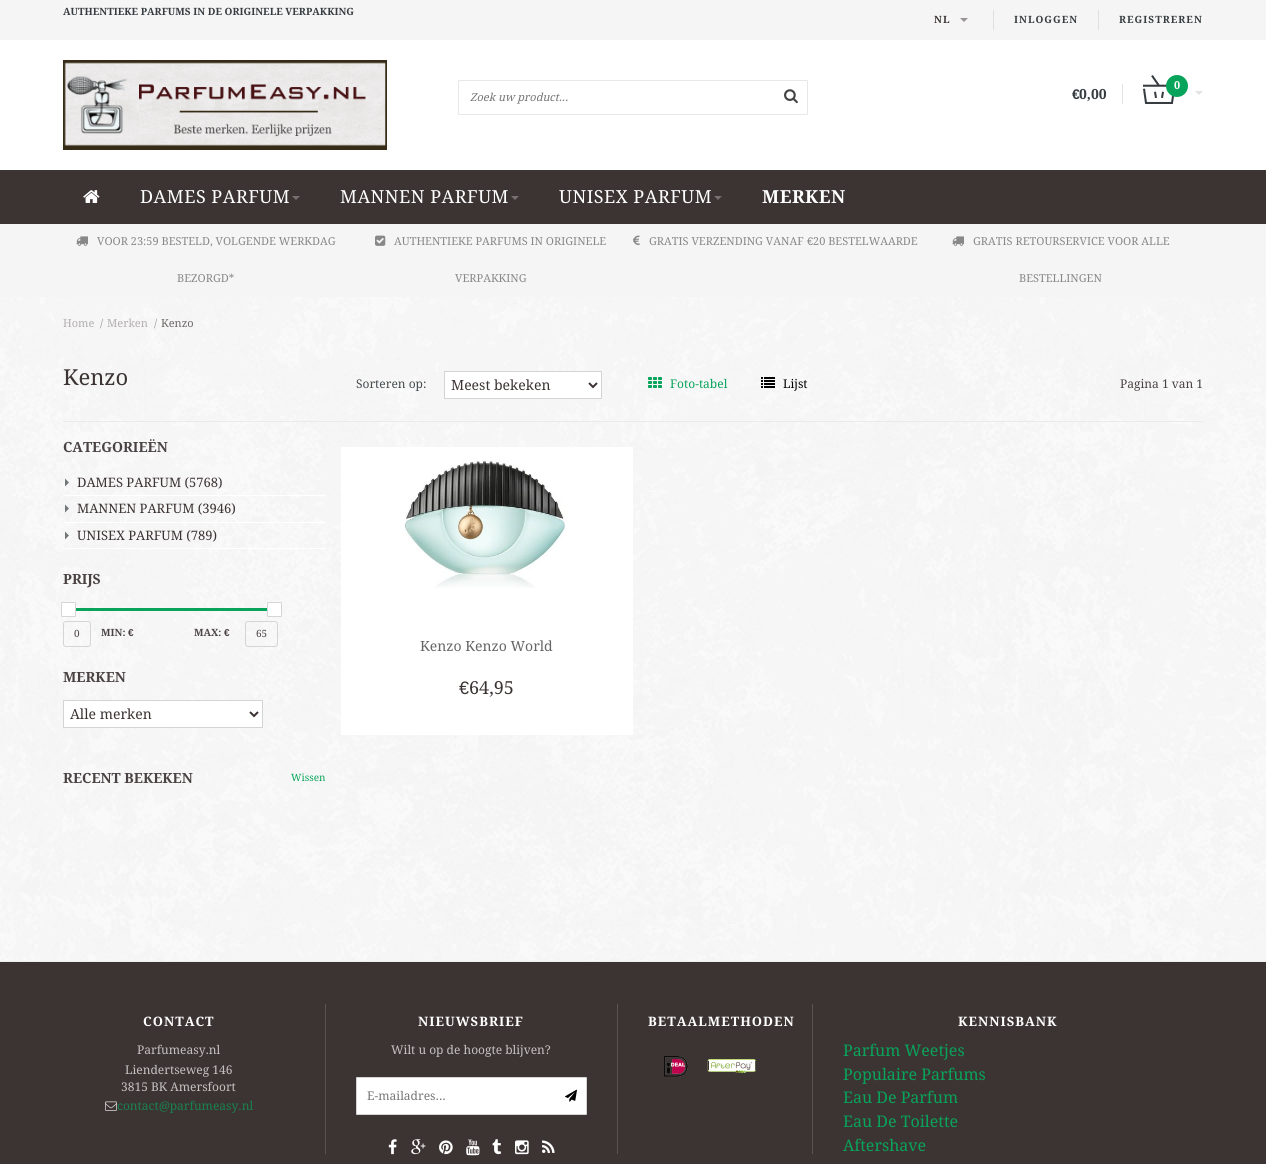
import math
import cairo

surface = cairo.ImageSurface(cairo.FORMAT_RGB24, 1266, 1164)
ctx = cairo.Context(surface)
options = cairo.FontOptions()
options.set_hint_metrics(cairo.HINT_METRICS_OFF)
options.set_hint_style(cairo.HINT_STYLE_NONE)
ctx.set_font_options(options)
ctx.set_miter_limit(4)


def set_color(code):
    ctx.set_source_rgb(*(v / 255 for v in bytes.fromhex(code[-6:])))


def draw_text(x, y, s, family, size, color, bold=False, italic=False):
    ctx.select_font_face(family, cairo.FONT_SLANT_ITALIC if italic else cairo.FONT_SLANT_NORMAL, cairo.FONT_WEIGHT_BOLD if bold else cairo.FONT_WEIGHT_NORMAL)
    ctx.set_font_size(size)
    set_color(color)
    ctx.move_to(x, y)
    ctx.show_text(s)


def draw_spaced(x, y, s, letter, word):
    ctx.move_to(x, y)
    for ch in s:
        ctx.show_text(ch)
        ctx.rel_move_to(letter + word * (ch == ' '), 0)


def fill_rect(x, y, w, h, color):
    set_color(color)
    ctx.rectangle(x, y, w, h)
    ctx.fill()


def rounded_rect(x, y, w, h, r):
    ctx.new_sub_path()
    for i, (u, v) in enumerate([(x + w - r, y + h - r), (x + r, y + h - r), (x + r, y + r), (x + w - r, y + r)]):
        ctx.arc(u, v, r, i * math.pi / 2, (i + 1) * math.pi / 2)
    ctx.close_path()


def draw_image(path, x, y, w, h):
    ctx.save()
    ctx.set_source_surface(cairo.ImageSurface.create_from_png(path), x, y)
    ctx.rectangle(x, y, w, h)
    ctx.fill()
    ctx.restore()


set_color("#ffffff")
ctx.paint()
draw_image("assets/img1.png", 0, 297, 1266, 664)
fill_rect(0, 0, 1266, 40, "#f5f5f5")
draw_text(63, 15, "AUTHENTIEKE PARFUMS IN DE ORIGINELE VERPAKKING", "Droid Serif", 10, "#363c3f", bold=True)
set_color("#3c3333")
draw_spaced(934, 23, "NL", 1, 0)
set_color("#999494")
ctx.new_path()
ctx.move_to(960, 18)
ctx.line_to(968, 18)
ctx.line_to(964, 22)
ctx.close_path()
ctx.fill()
fill_rect(993, 10, 1, 20, "#e0e0e0")
set_color("#363c3f")
draw_spaced(1014, 23, "INLOGGEN", 1, 0)
fill_rect(1098, 10, 1, 20, "#e0e0e0")
set_color("#363c3f")
draw_spaced(1119, 23, "REGISTREREN", 1, 0)
draw_image("assets/img2.png", 63, 60, 324, 90)
rounded_rect(458.5, 80.5, 349, 34, 0.5)
set_color("#e8e8e8")
ctx.set_line_width(1)
ctx.stroke()
draw_text(470, 101, "Zoek uw product...", "Droid Serif", 11, "#757575", italic=True)
draw_image("assets/img3.png", 784, 89, 14, 15)
draw_image("assets/img4.png", 1143, 75, 60, 29)
fill_rect(1122, 84, 1, 20, "#e3e3e3")
set_color("#08a45b")
ctx.arc(1177, 86, 11, 0, 2 * math.pi)
ctx.fill()
draw_text(1174, 89, "0", "Droid Serif", 11, "#ffffff", bold=True)
draw_text(1072, 99, "€", "Liberation Sans", 14, "#363c3f", bold=True)
draw_text(1079, 99, "0,00", "Droid Serif", 14, "#363c3f", bold=True)
fill_rect(0, 170, 1266, 54, "#3c3333")
draw_image("assets/img5.png", 83, 190, 17, 13)
ctx.select_font_face("Droid Serif")
ctx.set_font_size(18)
set_color("#ffffff")
draw_spaced(140, 203, "DAMES PARFUM", 0.5, 0)
set_color("#777070")
ctx.new_path()
ctx.move_to(292, 196)
ctx.line_to(300, 196)
ctx.line_to(296, 200)
ctx.close_path()
ctx.fill()
set_color("#ffffff")
draw_spaced(340, 203, "MANNEN PARFUM", 0.5, 0)
set_color("#777070")
ctx.new_path()
ctx.move_to(511, 196)
ctx.line_to(519, 196)
ctx.line_to(515, 200)
ctx.close_path()
ctx.fill()
set_color("#ffffff")
draw_spaced(559, 203, "UNISEX PARFUM", 0.5, 0)
set_color("#777070")
ctx.new_path()
ctx.move_to(714, 196)
ctx.line_to(722, 196)
ctx.line_to(718, 200)
ctx.close_path()
ctx.fill()
ctx.select_font_face("Droid Serif", cairo.FONT_SLANT_NORMAL, cairo.FONT_WEIGHT_BOLD)
set_color("#ffffff")
draw_spaced(762, 203, "MERKEN", 0.5, 0)
fill_rect(0, 224, 1266, 73, "#f5f5f5")
draw_image("assets/img6.png", 76, 236, 12, 10)
draw_text(97, 245, "VOOR 23:59 BESTELD, VOLGENDE WERKDAG", "Droid Serif", 11, "#888888")
draw_text(177, 282, "BEZORGD*", "Droid Serif", 11, "#888888")
draw_image("assets/img7.png", 375, 235, 11, 11)
draw_text(394, 245, "AUTHENTIEKE PARFUMS IN ORIGINELE", "Droid Serif", 11, "#888888")
draw_text(455, 282, "VERPAKKING", "Droid Serif", 11, "#888888")
draw_image("assets/img8.png", 633, 235, 7, 10)
draw_text(649, 245, "GRATIS VERZENDING VANAF", "Droid Serif", 11, "#888888")
draw_text(807, 245, "€", "Liberation Sans", 11, "#888888")
draw_text(813, 245, "20 BESTELWAARDE", "Droid Serif", 11, "#888888")
draw_image("assets/img6.png", 952, 236, 12, 10)
draw_text(973, 245, "GRATIS RETOURSERVICE VOOR ALLE", "Droid Serif", 11, "#888888")
draw_text(1019, 282, "BESTELLINGEN", "Droid Serif", 11, "#888888")
draw_text(63, 327, "Home", "Droid Serif", 11, "#b2aeae")
set_color("#999999")
draw_spaced(100, 327, "/", -2, 0)
draw_text(107, 327, "Merken", "Droid Serif", 11, "#b2aeae")
set_color("#999999")
draw_spaced(154, 327, "/", -2, 0)
draw_text(161, 327, "Kenzo", "Droid Serif", 11, "#6d6767")
draw_text(63, 385, "Kenzo", "Droid Serif", 22, "#3c3333")
draw_text(356, 388, "Sorteren op:", "Droid Serif", 12, "#464b4e")
set_color("#ffffff")
ctx.rectangle(444.5, 371.5, 157, 27)
ctx.fill_preserve()
set_color("#d4d4d4")
ctx.stroke()
ctx.new_path()
ctx.move_to(589, 383)
ctx.line_to(593, 387)
ctx.line_to(597, 383)
set_color("#3c3333")
ctx.set_line_width(2)
ctx.stroke()
draw_text(451, 390, "Meest bekeken", "Droid Serif", 14, "#3c3333")
draw_image("assets/img9.png", 648, 377, 14, 11)
draw_text(670, 388, "Foto-tabel", "Droid Serif", 12, "#08a45b")
draw_image("assets/img10.png", 761, 377, 14, 11)
draw_text(783, 388, "Lijst", "Droid Serif", 12, "#000000")
draw_text(1120, 388, "Pagina 1 van 1", "Droid Serif", 12, "#4b4343")
fill_rect(63, 421, 1140, 1, "#eaeaea")
draw_text(63, 452, "CATEGORIEËN", "Droid Serif", 14, "#4b4343", bold=True)
fill_rect(63, 495, 263, 1, "#ffffff")
draw_image("assets/img11.png", 65, 478, 4, 9)
draw_text(77, 487, "DAMES PARFUM (5768)", "Droid Serif", 13, "#3c3333")
fill_rect(63, 522, 263, 1, "#ffffff")
draw_image("assets/img12.png", 65, 504, 4, 9)
draw_text(77, 513, "MANNEN PARFUM (3946)", "Droid Serif", 13, "#3c3333")
fill_rect(63, 548, 263, 1, "#ffffff")
draw_image("assets/img13.png", 65, 531, 4, 9)
draw_text(77, 540, "UNISEX PARFUM (789)", "Droid Serif", 13, "#3c3333")
draw_text(63, 584, "PRIJS", "Droid Serif", 14, "#4b4343", bold=True)
fill_rect(69, 608, 206, 3, "#08a45b")
set_color("#ffffff")
rounded_rect(61.5, 602.5, 14, 14, 0.5)
ctx.fill_preserve()
set_color("#d5d5d5")
ctx.set_line_width(1)
ctx.stroke()
set_color("#ffffff")
rounded_rect(267.5, 602.5, 14, 14, 0.5)
ctx.fill_preserve()
set_color("#d5d5d5")
ctx.stroke()
rounded_rect(63.5, 621.5, 27, 25, 2.5)
ctx.stroke()
draw_text(74, 637, "0", "Droid Serif", 10, "#4b4343")
draw_text(101, 636, "MIN:", "Droid Serif", 10, "#4b4343", bold=True)
draw_text(128, 636, "€", "Liberation Sans", 10, "#4b4343", bold=True)
draw_text(194, 636, "MAX:", "Droid Serif", 10, "#4b4343", bold=True)
draw_text(224, 636, "€", "Liberation Sans", 10, "#4b4343", bold=True)
rounded_rect(245.5, 621.5, 32, 25, 2.5)
set_color("#d5d5d5")
ctx.stroke()
draw_text(256, 637, "65", "Droid Serif", 10, "#4b4343")
draw_text(63, 682, "MERKEN", "Droid Serif", 14, "#4b4343", bold=True)
set_color("#ffffff")
ctx.rectangle(63.5, 700.5, 199, 27)
ctx.fill_preserve()
set_color("#d4d4d4")
ctx.stroke()
ctx.new_path()
ctx.move_to(250, 712)
ctx.line_to(254, 716)
ctx.line_to(258, 712)
set_color("#3c3333")
ctx.set_line_width(2)
ctx.stroke()
draw_text(70, 719, "Alle merken", "Droid Serif", 14, "#3c3333")
draw_text(63, 783, "RECENT BEKEKEN", "Droid Serif", 14, "#4b4343", bold=True)
draw_text(291, 781, "Wissen", "Droid Serif", 10, "#08a45b")
fill_rect(341, 447, 292, 288, "#ffffff")
draw_image("assets/img14.png", 404, 460, 162, 128)
draw_text(420, 651, "Kenzo Kenzo World", "Droid Serif", 14, "#666666")
draw_text(459, 694, "€", "Liberation Sans", 18, "#3c3333")
draw_text(469, 694, "64,95", "Droid Serif", 18, "#3c3333")
fill_rect(0, 962, 1266, 202, "#3c3432")
fill_rect(0, 961, 1266, 1, "#eeeeee")
fill_rect(325, 1004, 1, 150, "#595352")
ctx.select_font_face("Droid Serif", cairo.FONT_SLANT_NORMAL, cairo.FONT_WEIGHT_BOLD)
ctx.set_font_size(13)
set_color("#ffffff")
draw_spaced(143, 1026, "CONTACT", 1, 0)
draw_text(137, 1054, "Parfumeasy.nl", "Droid Serif", 12, "#c5c2c2")
draw_text(125, 1074, "Liendertseweg 146", "Droid Serif", 12, "#c5c2c2")
draw_text(121, 1091, "3815 BK Amersfoort", "Droid Serif", 12, "#c5c2c2")
draw_image("assets/img15.png", 105, 1101, 12, 10)
draw_text(117, 1110, "contact@parfumeasy.nl", "Droid Serif", 12, "#18824f")
fill_rect(617, 1004, 1, 150, "#595352")
ctx.select_font_face("Droid Serif", cairo.FONT_SLANT_NORMAL, cairo.FONT_WEIGHT_BOLD)
ctx.set_font_size(13)
set_color("#ffffff")
draw_spaced(418, 1026, "NIEUWSBRIEF", 1, 0)
draw_text(391, 1054, "Wilt u op de hoogte blijven?", "Droid Serif", 12, "#c5c2c2")
set_color("#ffffff")
rounded_rect(356.5, 1077.5, 230, 37, 0.5)
ctx.fill_preserve()
set_color("#d4d4d4")
ctx.set_line_width(1)
ctx.stroke()
draw_text(367, 1100, "E-mailadres...", "Droid Serif", 12, "#757575")
draw_image("assets/img16.png", 565, 1089, 12, 13)
draw_image("assets/img17.png", 388, 1139, 9, 16)
draw_image("assets/img18.png", 411, 1139, 15, 16)
draw_image("assets/img19.png", 439, 1140, 14, 15)
draw_image("assets/img20.png", 466, 1139, 14, 17)
draw_image("assets/img21.png", 492, 1139, 10, 16)
draw_image("assets/img22.png", 515, 1140, 14, 15)
draw_image("assets/img23.png", 542, 1140, 13, 13)
fill_rect(812, 1004, 1, 150, "#595352")
ctx.select_font_face("Droid Serif", cairo.FONT_SLANT_NORMAL, cairo.FONT_WEIGHT_BOLD)
ctx.set_font_size(13)
set_color("#ffffff")
draw_spaced(648, 1026, "BETAALMETHODEN", 1, 0)
draw_image("assets/img24.png", 664, 1056, 24, 21)
draw_image("assets/img25.png", 707, 1059, 49, 14)
draw_spaced(958, 1026, "KENNISBANK", 1, 0)
draw_text(843, 1056, "Parfum Weetjes", "Droid Serif", 16, "#08a45b")
draw_text(843, 1080, "Populaire Parfums", "Droid Serif", 16, "#08a45b")
draw_text(843, 1103, "Eau De Parfum", "Droid Serif", 16, "#08a45b")
draw_text(843, 1127, "Eau De Toilette", "Droid Serif", 16, "#08a45b")
draw_text(843, 1151, "Aftershave", "Droid Serif", 16, "#08a45b")
surface.write_to_png("output.png")
